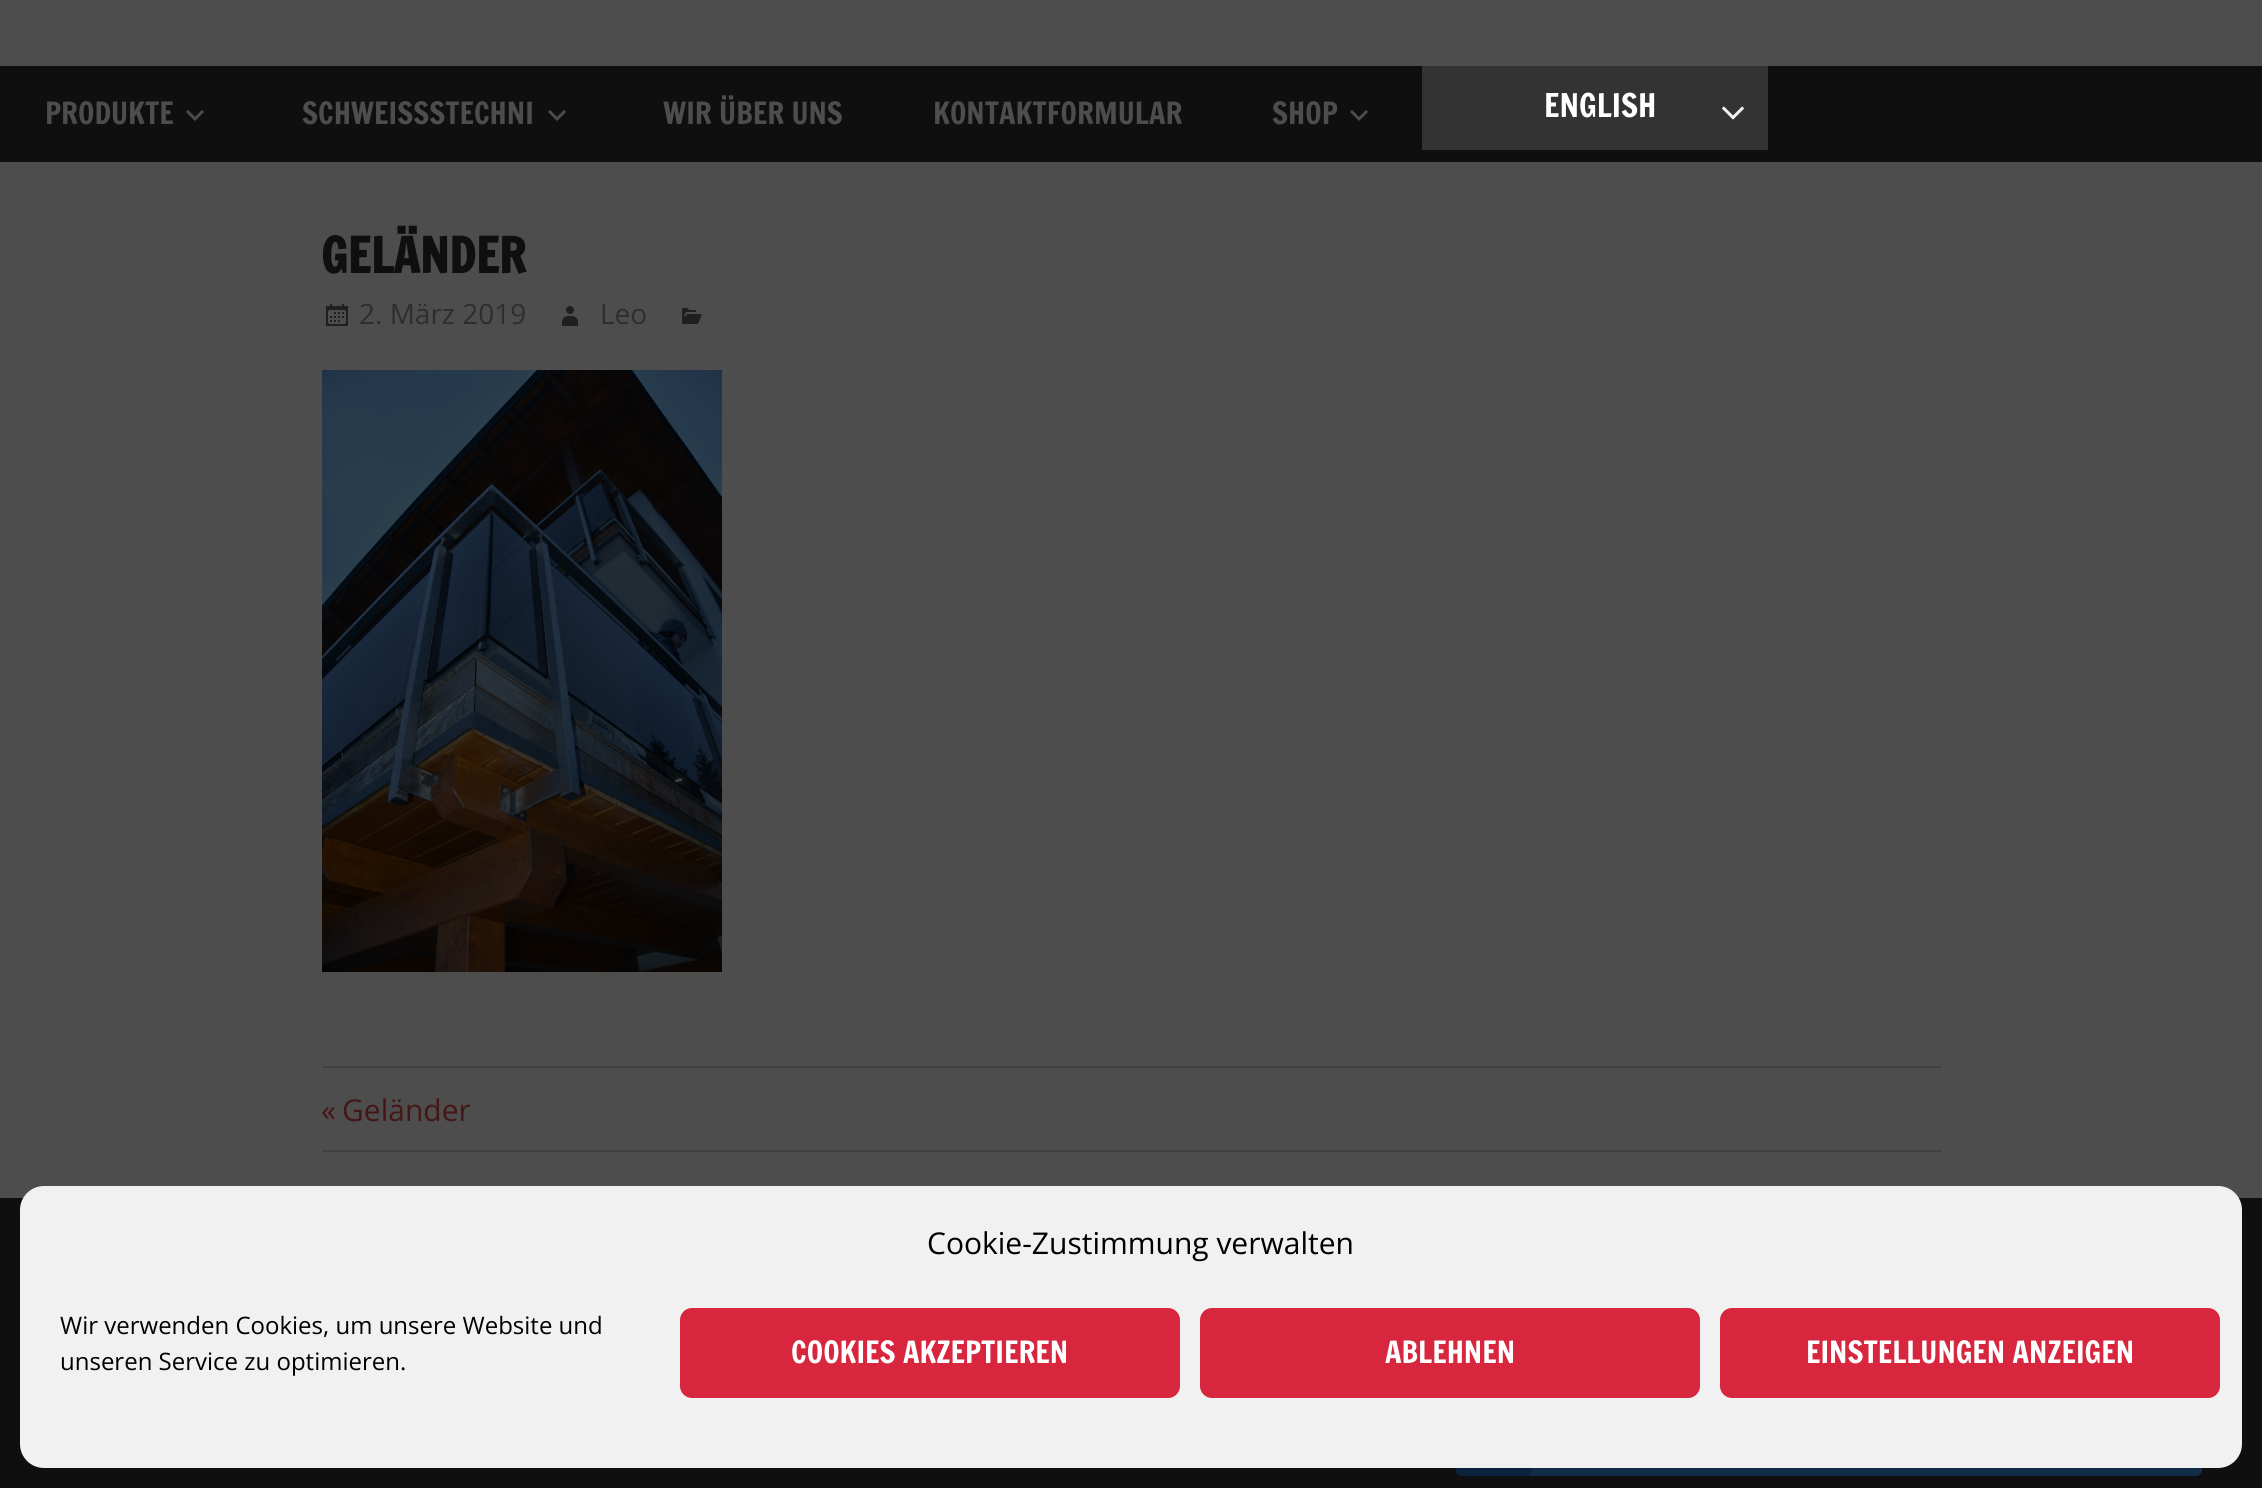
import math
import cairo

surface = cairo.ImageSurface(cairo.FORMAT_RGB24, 2262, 1488)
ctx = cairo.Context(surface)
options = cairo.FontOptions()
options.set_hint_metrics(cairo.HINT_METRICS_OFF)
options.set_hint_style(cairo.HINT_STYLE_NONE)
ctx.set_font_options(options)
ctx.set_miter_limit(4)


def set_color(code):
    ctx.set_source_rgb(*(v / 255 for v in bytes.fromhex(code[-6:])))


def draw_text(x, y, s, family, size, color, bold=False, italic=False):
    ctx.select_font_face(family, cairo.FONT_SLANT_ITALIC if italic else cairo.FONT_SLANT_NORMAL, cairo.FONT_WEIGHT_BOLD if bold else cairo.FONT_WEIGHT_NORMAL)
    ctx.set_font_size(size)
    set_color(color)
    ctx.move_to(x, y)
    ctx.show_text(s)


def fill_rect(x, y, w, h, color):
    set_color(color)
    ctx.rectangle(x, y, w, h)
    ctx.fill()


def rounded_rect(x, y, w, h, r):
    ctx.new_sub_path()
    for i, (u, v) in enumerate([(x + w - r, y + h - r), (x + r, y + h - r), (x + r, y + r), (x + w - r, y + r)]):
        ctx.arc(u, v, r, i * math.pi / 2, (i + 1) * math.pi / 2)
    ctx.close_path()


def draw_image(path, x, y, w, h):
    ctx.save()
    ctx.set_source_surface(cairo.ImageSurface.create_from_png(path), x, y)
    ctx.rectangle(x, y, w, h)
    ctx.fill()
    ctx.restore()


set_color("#4d4d4d")
ctx.paint()
fill_rect(0, 66, 2262, 96, "#0f0f0f")
draw_text(45, 124, "PRODUKTE", "Francois One", 30, "#4d4d4d")
ctx.new_path()
ctx.move_to(202, 110)
ctx.line_to(204, 112)
ctx.line_to(195, 121)
ctx.line_to(186, 112)
ctx.line_to(188, 110)
ctx.line_to(195, 117)
ctx.close_path()
ctx.fill()
draw_text(302, 124, "SCHWEISSSTECHNI", "Francois One", 30, "#4d4d4d")
ctx.new_path()
ctx.move_to(564, 110)
ctx.line_to(566, 112)
ctx.line_to(557, 121)
ctx.line_to(548, 112)
ctx.line_to(550, 110)
ctx.line_to(557, 117)
ctx.close_path()
ctx.fill()
draw_text(663, 124, "WIR ÜBER UNS", "Francois One", 30, "#4d4d4d")
draw_text(933, 124, "KONTAKTFORMULAR", "Francois One", 30, "#4d4d4d")
draw_text(1272, 124, "SHOP", "Francois One", 30, "#4d4d4d")
ctx.new_path()
ctx.move_to(1366, 110)
ctx.line_to(1368, 112)
ctx.line_to(1359, 121)
ctx.line_to(1350, 112)
ctx.line_to(1352, 110)
ctx.line_to(1359, 117)
ctx.close_path()
ctx.fill()
fill_rect(1422, 66, 346, 84, "#333333")
draw_text(1544, 117, "ENGLISH", "Francois One", 32, "#ffffff")
draw_image("assets/img1.png", 1722, 106, 22, 14)
draw_text(321, 273, "GELÄNDER", "Francois One", 48, "#0f0f0f", bold=True)
draw_image("assets/img2.png", 326, 304, 22, 22)
draw_text(359, 324, "2. März 2019", "Open Sans", 28, "#2e2e2e")
draw_image("assets/img3.png", 562, 306, 16, 20)
draw_text(600, 324, "Leo", "Open Sans", 28, "#2e2e2e")
draw_image("assets/img4.png", 682, 308, 20, 16)
draw_image("assets/img5.png", 322, 370, 400, 602)
fill_rect(322, 1066, 1620, 2, "#424242")
fill_rect(322, 1150, 1620, 2, "#424242")
draw_text(321, 1121, "«", "Open Sans", 30, "#461515")
draw_text(342, 1121, "Geländer", "Open Sans", 30, "#461515")
fill_rect(0, 1198, 2262, 290, "#0f0f0f")
set_color("#112d48")
rounded_rect(1456, 1400, 746, 76, 6)
ctx.fill()
set_color("#09233c")
rounded_rect(1456, 1400, 76, 76, 6)
ctx.fill()
set_color("#f1f1f1")
rounded_rect(20, 1186, 2222, 282, 24)
ctx.fill()
draw_text(927, 1254, "Cookie-Zustimmung verwalten", "Open Sans", 30, "#000000")
draw_text(60, 1334, "Wir verwenden Cookies, um unsere Website und", "Open Sans", 24, "#000000")
draw_text(60, 1370, "unseren Service zu optimieren.", "Open Sans", 24, "#000000")
set_color("#d7263d")
rounded_rect(681, 1309, 498, 88, 11)
ctx.fill_preserve()
ctx.stroke()
draw_text(791, 1363, "COOKIES AKZEPTIEREN", "Francois One", 30, "#ffffff")
set_color("#d7263d")
rounded_rect(1201, 1309, 498, 88, 11)
ctx.fill_preserve()
ctx.stroke()
draw_text(1385, 1363, "ABLEHNEN", "Francois One", 30, "#ffffff")
set_color("#d7263d")
rounded_rect(1721, 1309, 498, 88, 11)
ctx.fill_preserve()
ctx.stroke()
draw_text(1806, 1363, "EINSTELLUNGEN ANZEIGEN", "Francois One", 30, "#ffffff")
surface.write_to_png("output.png")
